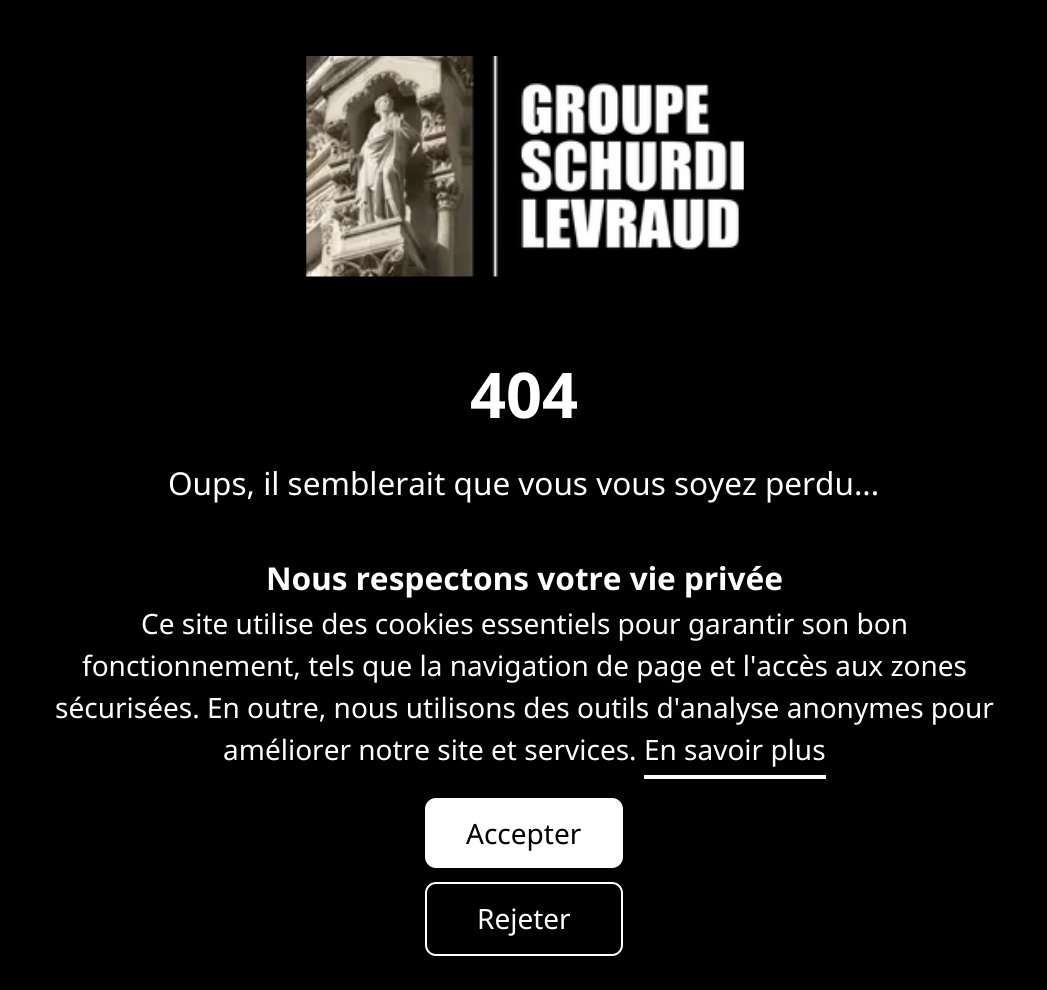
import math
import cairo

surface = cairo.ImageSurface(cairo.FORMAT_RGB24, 1047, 990)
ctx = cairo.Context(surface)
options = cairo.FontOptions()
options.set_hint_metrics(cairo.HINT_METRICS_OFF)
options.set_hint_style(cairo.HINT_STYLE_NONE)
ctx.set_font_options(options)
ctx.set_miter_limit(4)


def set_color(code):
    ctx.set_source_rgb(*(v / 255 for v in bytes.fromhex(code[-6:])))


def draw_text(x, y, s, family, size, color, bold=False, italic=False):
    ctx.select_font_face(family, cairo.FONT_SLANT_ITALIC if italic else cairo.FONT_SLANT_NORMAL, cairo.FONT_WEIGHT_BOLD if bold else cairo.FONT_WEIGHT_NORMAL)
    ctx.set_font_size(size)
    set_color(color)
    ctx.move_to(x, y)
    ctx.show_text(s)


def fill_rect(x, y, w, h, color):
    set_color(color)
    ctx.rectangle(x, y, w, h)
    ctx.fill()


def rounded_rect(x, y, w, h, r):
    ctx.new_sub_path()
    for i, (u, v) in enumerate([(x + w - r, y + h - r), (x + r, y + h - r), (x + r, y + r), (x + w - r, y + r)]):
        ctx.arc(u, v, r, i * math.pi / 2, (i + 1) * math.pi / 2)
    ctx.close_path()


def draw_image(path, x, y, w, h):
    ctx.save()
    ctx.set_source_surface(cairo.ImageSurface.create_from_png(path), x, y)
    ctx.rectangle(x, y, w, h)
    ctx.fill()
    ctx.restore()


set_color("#000000")
ctx.paint()
draw_image("assets/img1.png", 306, 56, 438, 221)
draw_text(470, 418, "404", "Noto Sans", 63, "#ffffff", bold=True)
draw_text(168, 495, "Oups, il semblerait que vous vous soyez perdu...", "Noto Sans", 31.5, "#ffffff")
draw_text(266, 590, "Nous respectons votre vie privée", "Noto Sans", 31.5, "#ffffff", bold=True)
draw_text(141, 634, "Ce site utilise des cookies essentiels pour garantir son bon", "Noto Sans", 28, "#ffffff")
draw_text(82, 676, "fonctionnement, tels que la navigation de page et l'accès aux zones", "Noto Sans", 28, "#ffffff")
draw_text(55, 718, "sécurisées. En outre, nous utilisons des outils d'analyse anonymes pour", "Noto Sans", 28, "#ffffff")
draw_text(223, 760, "améliorer notre site et services. En savoir plus", "Noto Sans", 28, "#ffffff")
fill_rect(644, 775, 182, 4, "#ffffff")
rounded_rect(425, 798, 198, 70, 11)
ctx.fill()
draw_text(466, 844, "Accepter", "Noto Sans", 28, "#000000")
rounded_rect(426, 883, 196, 72, 10)
set_color("#ffffff")
ctx.stroke()
draw_text(477, 929, "Rejeter", "Noto Sans", 28, "#ffffff")
surface.write_to_png("output.png")
